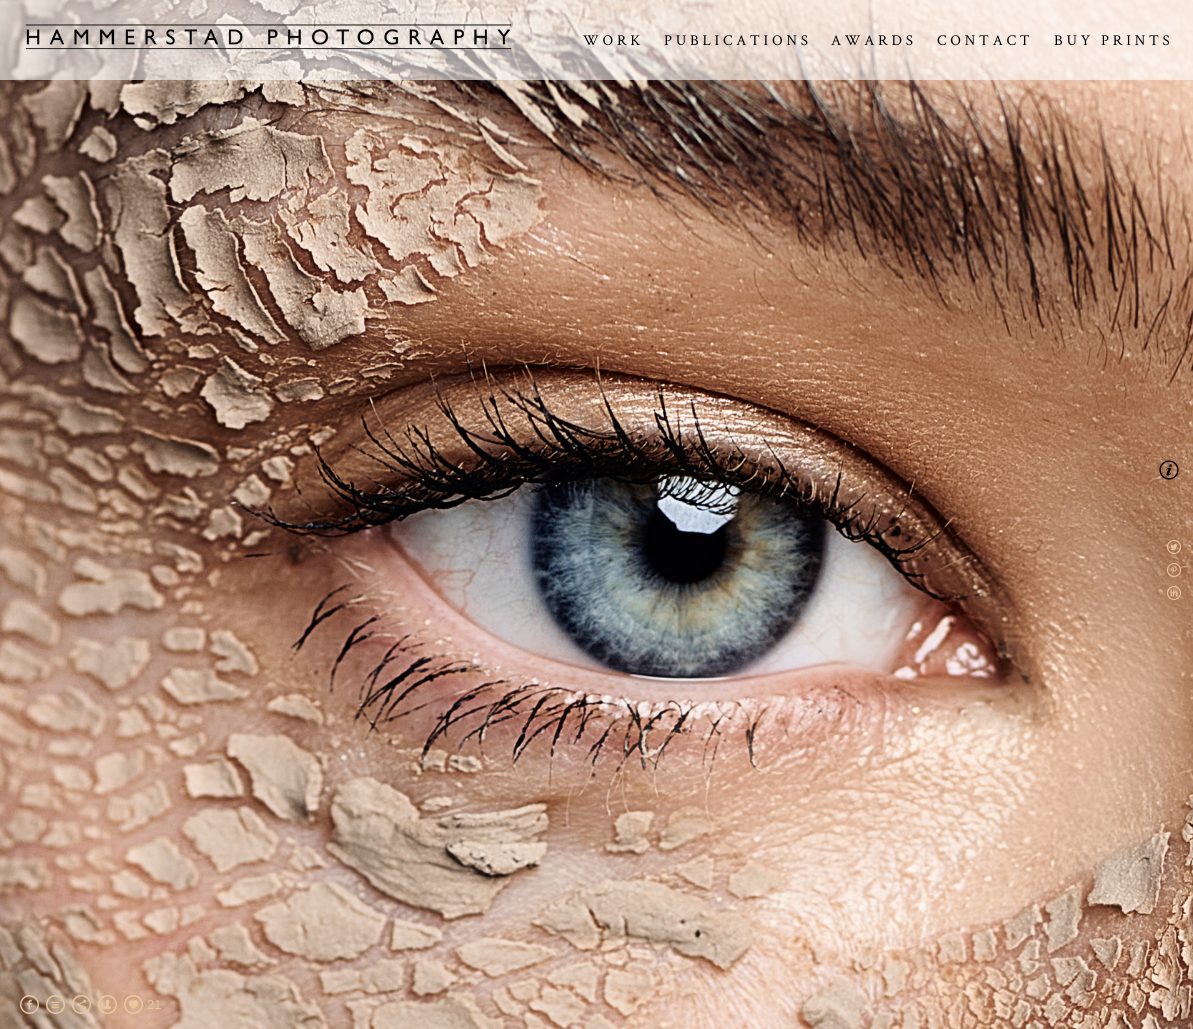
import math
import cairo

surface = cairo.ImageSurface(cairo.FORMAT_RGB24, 1193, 1029)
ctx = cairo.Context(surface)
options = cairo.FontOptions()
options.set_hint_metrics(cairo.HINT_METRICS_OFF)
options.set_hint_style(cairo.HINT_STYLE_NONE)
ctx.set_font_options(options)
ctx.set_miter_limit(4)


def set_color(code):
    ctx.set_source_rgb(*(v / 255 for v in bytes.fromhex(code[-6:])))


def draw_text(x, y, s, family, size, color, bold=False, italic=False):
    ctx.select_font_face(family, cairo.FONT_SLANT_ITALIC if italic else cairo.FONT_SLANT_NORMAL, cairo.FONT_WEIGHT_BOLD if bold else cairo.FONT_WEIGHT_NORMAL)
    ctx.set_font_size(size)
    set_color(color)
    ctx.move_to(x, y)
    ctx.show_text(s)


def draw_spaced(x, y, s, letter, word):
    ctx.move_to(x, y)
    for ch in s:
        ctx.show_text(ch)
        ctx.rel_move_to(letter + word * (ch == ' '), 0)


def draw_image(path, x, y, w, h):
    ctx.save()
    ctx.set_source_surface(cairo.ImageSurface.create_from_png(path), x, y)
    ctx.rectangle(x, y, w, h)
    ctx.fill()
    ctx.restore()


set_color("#ffffff")
ctx.paint()
draw_image("assets/img1.png", 0, 0, 1193, 1029)
draw_image("assets/img2.png", 1159, 460, 20, 20)
ctx.set_source_rgba(1, 1, 1, 0.6)
ctx.rectangle(0, 0, 1193, 80)
ctx.fill()
draw_image("assets/img3.png", 25, 24, 487, 26)
ctx.select_font_face("Crimson Text")
ctx.set_font_size(15)
set_color("#000000")
draw_spaced(583, 45, "WORK", 3.75, 0)
draw_spaced(664, 45, "PUBLICATIONS", 3.75, 0)
draw_spaced(831, 45, "AWARDS", 3.75, 0)
draw_spaced(937, 45, "CONTACT", 3.75, 0)
draw_spaced(1054, 45, "BUY PRINTS", 3.75, 0)
draw_image("assets/img4.png", 1167, 540, 14, 14)
draw_image("assets/img5.png", 1167, 563, 14, 14)
draw_image("assets/img6.png", 1167, 586, 14, 14)
draw_image("assets/img7.png", 20, 995, 19, 19)
draw_image("assets/img8.png", 46, 995, 19, 19)
draw_image("assets/img9.png", 72, 995, 19, 19)
draw_image("assets/img10.png", 98, 995, 19, 19)
draw_image("assets/img11.png", 124, 995, 19, 19)
draw_text(147, 1009, "21", "Liberation Sans", 13, "#ebc79b")
surface.write_to_png("output.png")
